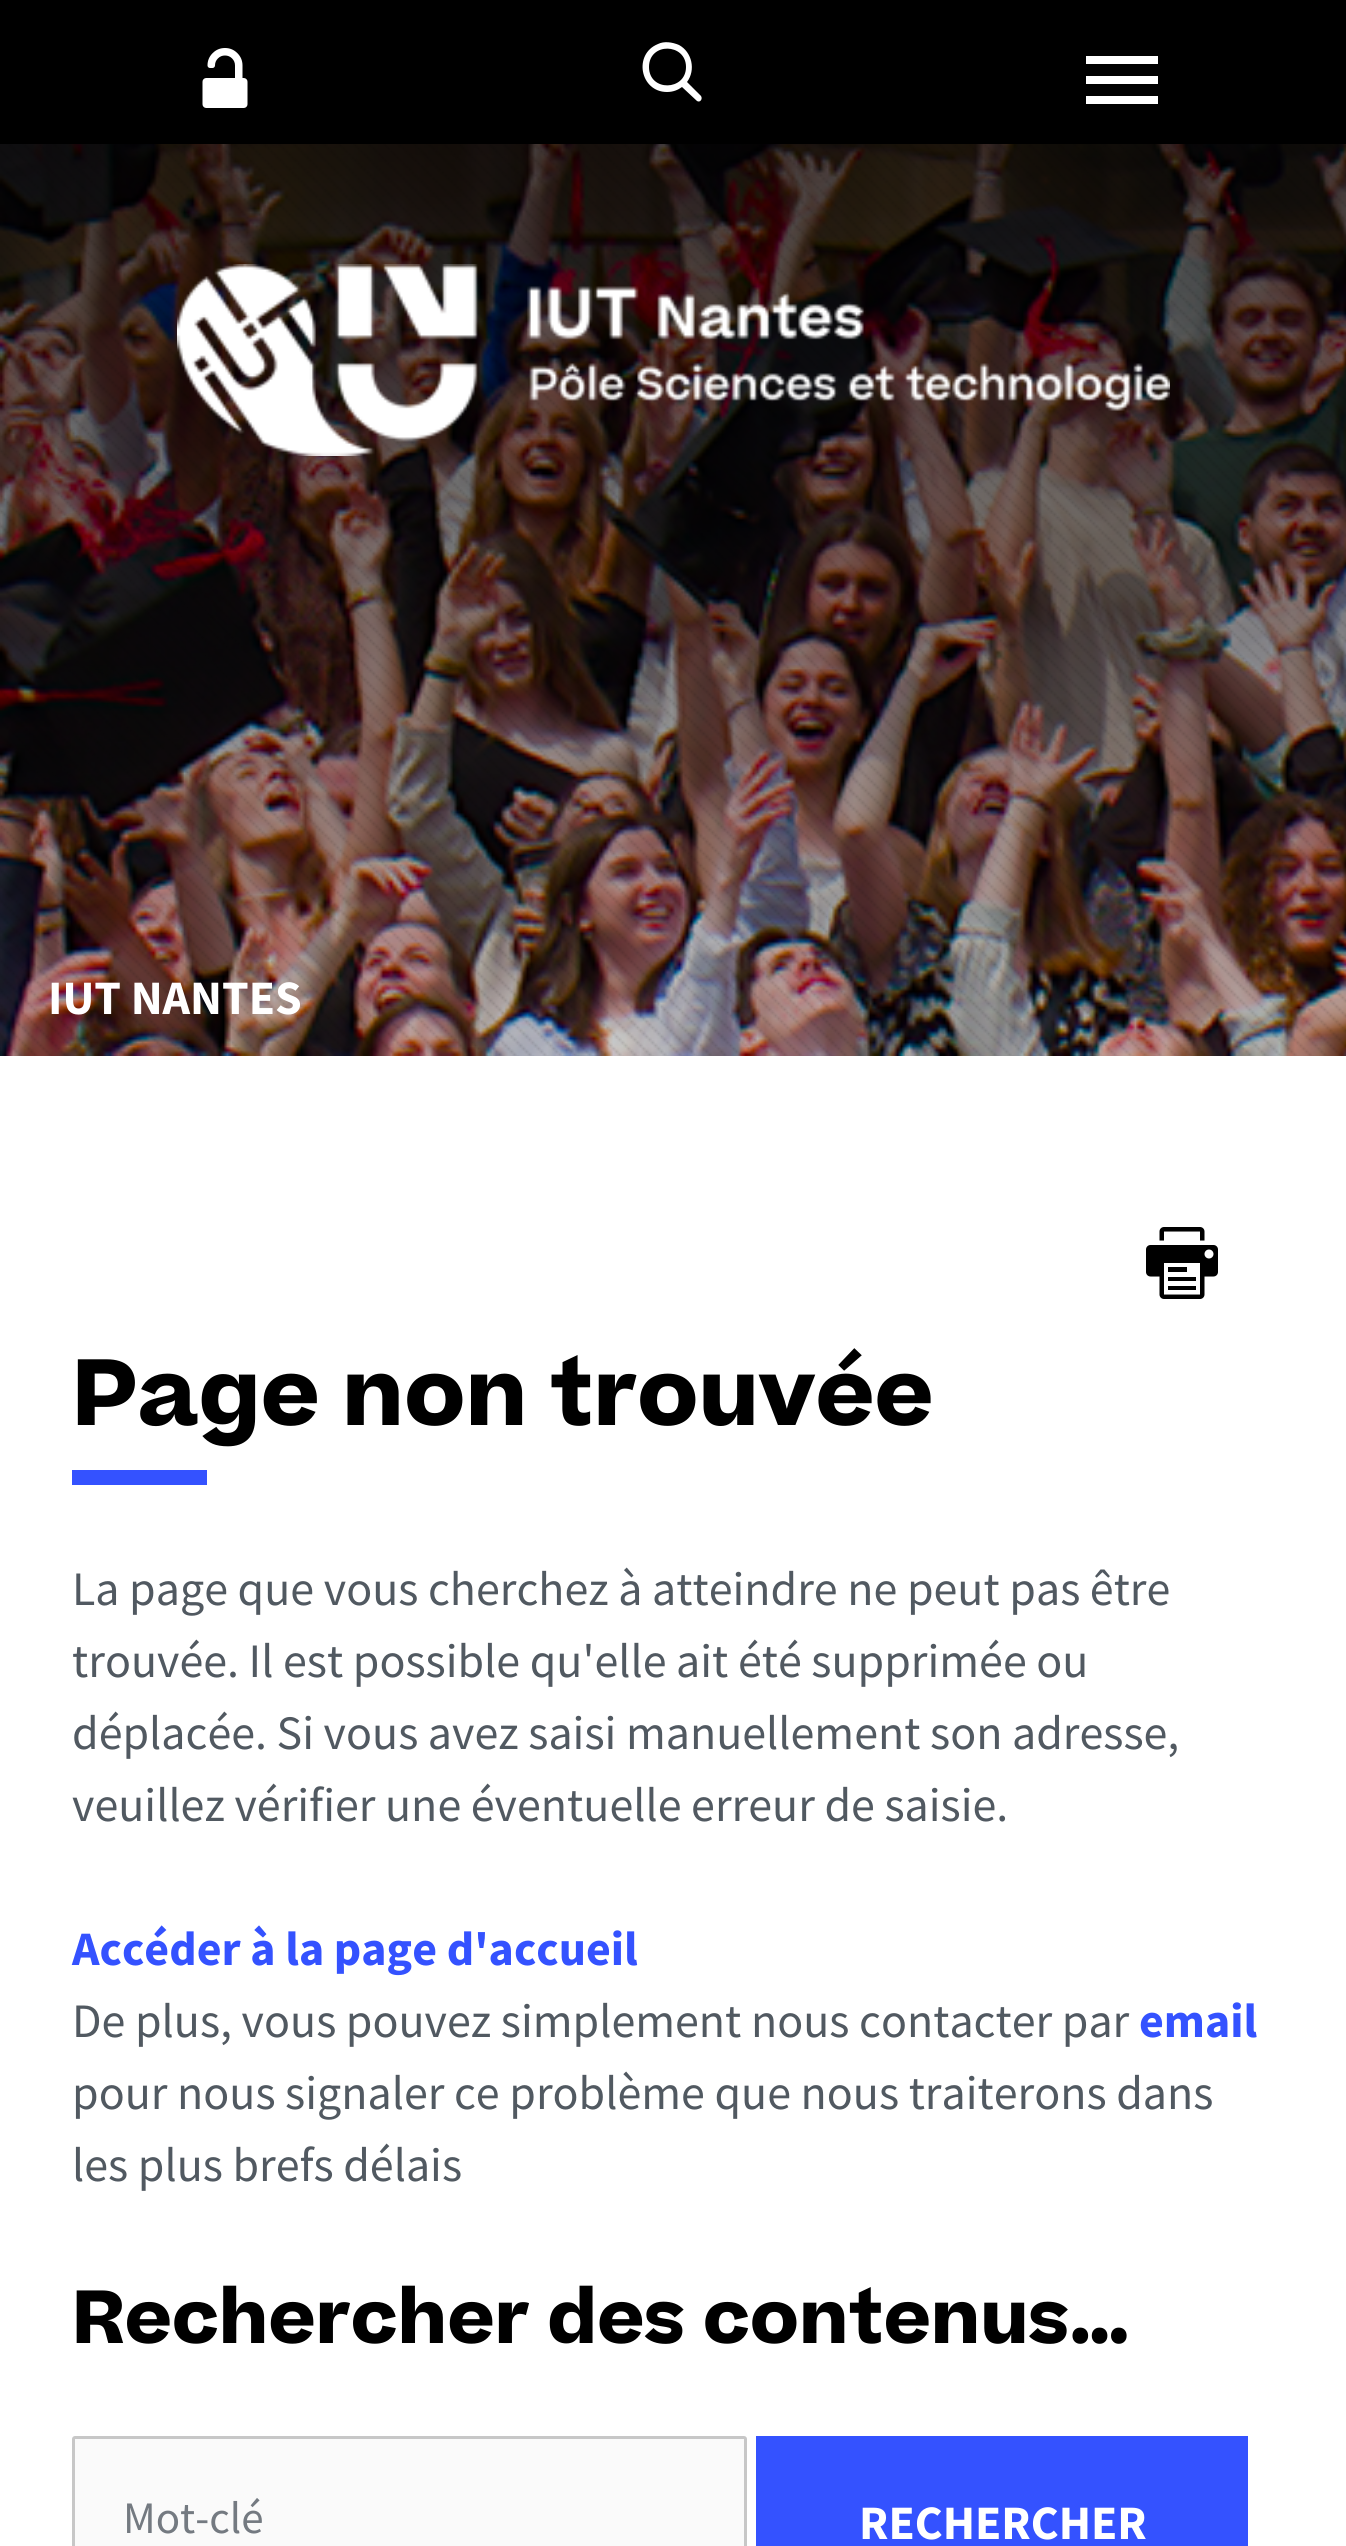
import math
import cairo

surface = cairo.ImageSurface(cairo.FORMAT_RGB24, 1346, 2546)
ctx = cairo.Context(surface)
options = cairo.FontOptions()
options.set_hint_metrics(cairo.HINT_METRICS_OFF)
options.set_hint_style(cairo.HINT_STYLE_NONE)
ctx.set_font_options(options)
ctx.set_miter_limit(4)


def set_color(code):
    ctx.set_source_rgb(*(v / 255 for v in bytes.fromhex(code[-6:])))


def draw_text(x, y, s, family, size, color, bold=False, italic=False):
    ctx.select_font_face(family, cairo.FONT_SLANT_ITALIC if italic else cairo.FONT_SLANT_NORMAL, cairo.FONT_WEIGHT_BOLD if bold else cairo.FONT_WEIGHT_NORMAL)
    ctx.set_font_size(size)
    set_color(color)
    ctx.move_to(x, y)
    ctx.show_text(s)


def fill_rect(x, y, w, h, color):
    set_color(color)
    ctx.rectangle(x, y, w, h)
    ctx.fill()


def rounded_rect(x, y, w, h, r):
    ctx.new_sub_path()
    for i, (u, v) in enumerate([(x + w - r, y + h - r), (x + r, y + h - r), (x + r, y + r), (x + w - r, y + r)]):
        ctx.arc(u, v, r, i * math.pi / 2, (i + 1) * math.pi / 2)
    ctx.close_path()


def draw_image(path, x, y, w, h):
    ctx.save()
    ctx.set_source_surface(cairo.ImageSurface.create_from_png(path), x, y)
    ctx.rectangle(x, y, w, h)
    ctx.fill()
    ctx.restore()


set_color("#ffffff")
ctx.paint()
draw_image("assets/img1.png", 0, 144, 1346, 912)
draw_image("assets/img2.png", 0, 144, 1346, 912)
fill_rect(0, 0, 1346, 144, "#000000")
draw_image("assets/img3.png", 202, 48, 46, 60)
set_color("#ffffff")
ctx.new_path()
ctx.move_to(701, 96)
ctx.line_to(687, 82)
ctx.curve_to(696, 70, 692, 52, 679, 45)
ctx.curve_to(672, 42, 664, 41, 658, 44)
ctx.curve_to(633, 54, 640, 92, 667, 92)
ctx.curve_to(673, 92, 678, 90, 682, 87)
ctx.line_to(697, 101)
ctx.curve_to(700, 103, 703, 99, 701, 96)
ctx.close_path()
ctx.move_to(686, 67)
ctx.curve_to(686, 91, 649, 92, 649, 67)
ctx.curve_to(649, 42, 686, 43, 686, 67)
ctx.close_path()
ctx.fill()
ctx.new_path()
ctx.move_to(1086, 104)
ctx.line_to(1158, 104)
ctx.line_to(1158, 96)
ctx.line_to(1086, 96)
ctx.close_path()
ctx.move_to(1086, 84)
ctx.line_to(1158, 84)
ctx.line_to(1158, 76)
ctx.line_to(1086, 76)
ctx.close_path()
ctx.move_to(1086, 56)
ctx.line_to(1086, 64)
ctx.line_to(1158, 64)
ctx.line_to(1158, 56)
ctx.close_path()
ctx.fill()
draw_image("assets/img4.png", 177, 264, 993, 192)
draw_text(48, 1014, "IUT NANTES", "Source Sans Pro", 48, "#ffffff", bold=True)
draw_image("assets/img5.png", 1146, 1227, 72, 72)
draw_text(72, 1425, "Page non trouvée", "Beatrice", 90, "#000000", bold=True)
fill_rect(72, 1470, 135, 15, "#3452ff")
draw_text(72, 1605, "La page que vous cherchez à atteindre ne peut pas être", "Source Sans Pro", 48, "#515961")
draw_text(72, 1677, "trouvée. Il est possible qu'elle ait été supprimée ou", "Source Sans Pro", 48, "#515961")
draw_text(72, 1749, "déplacée. Si vous avez saisi manuellement son adresse,", "Source Sans Pro", 48, "#515961")
draw_text(72, 1821, "veuillez vérifier une éventuelle erreur de saisie.", "Source Sans Pro", 48, "#515961")
draw_text(72, 1965, "Accéder à la page d'accueil", "Source Sans Pro", 48, "#3452ff", bold=True)
draw_text(72, 2037, "De plus, vous pouvez simplement nous contacter par", "Source Sans Pro", 48, "#515961")
draw_text(1139, 2037, "email", "Source Sans Pro", 48, "#3452ff", bold=True)
draw_text(72, 2109, "pour nous signaler ce problème que nous traiterons dans", "Source Sans Pro", 48, "#515961")
draw_text(72, 2181, "les plus brefs délais", "Source Sans Pro", 48, "#515961")
draw_text(72, 2343, "Rechercher des contenus…", "Beatrice", 72, "#000000", bold=True)
set_color("#fafafa")
rounded_rect(73.5, 2437.5, 672, 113, 1.5)
ctx.fill_preserve()
set_color("#c7c7c7")
ctx.set_line_width(3)
ctx.stroke()
draw_text(123, 2533, "Mot-clé", "Source Sans Pro", 45, "#747a81")
fill_rect(756, 2436, 492, 110, "#3452ff")
draw_text(859, 2539, "RECHERCHER", "Source Sans Pro", 48, "#ffffff", bold=True)
surface.write_to_png("output.png")
